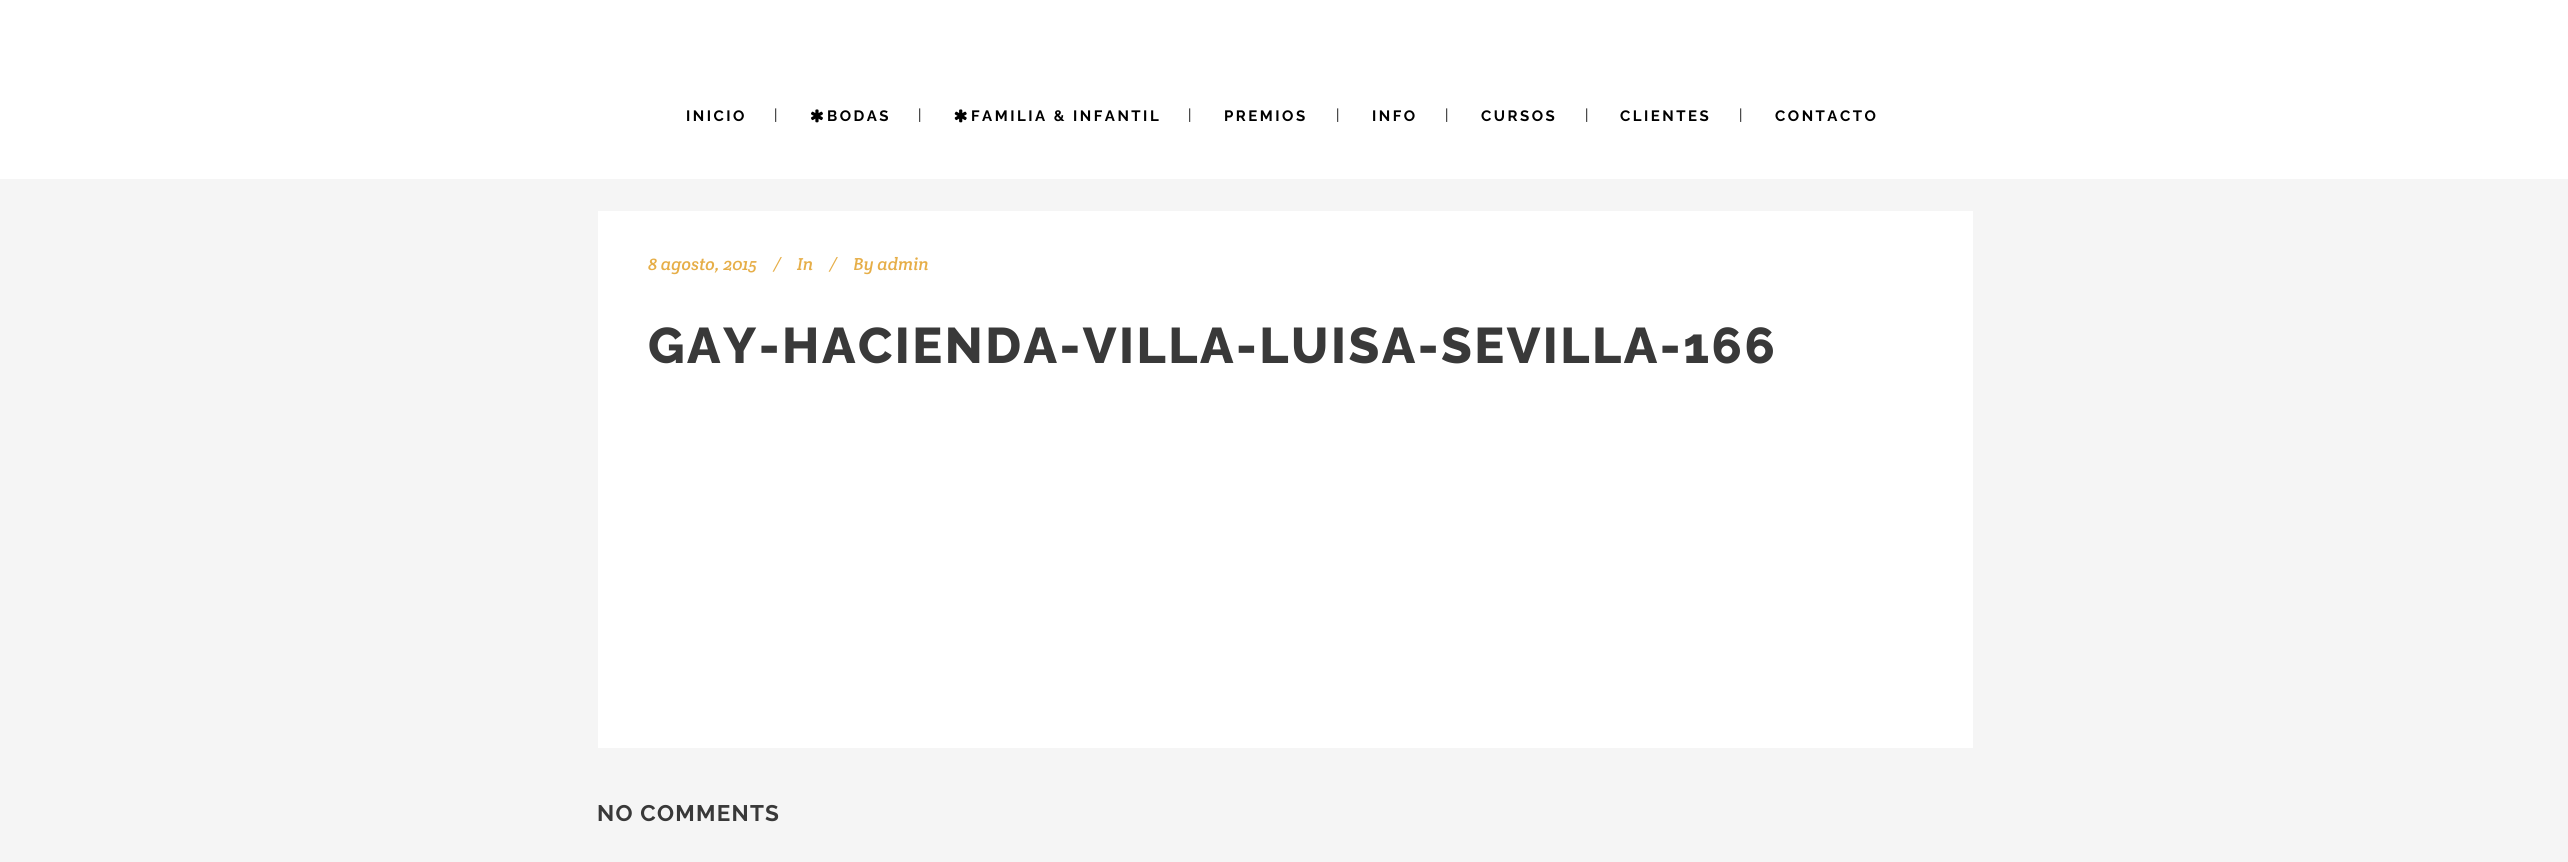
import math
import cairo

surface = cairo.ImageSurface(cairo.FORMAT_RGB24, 2568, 862)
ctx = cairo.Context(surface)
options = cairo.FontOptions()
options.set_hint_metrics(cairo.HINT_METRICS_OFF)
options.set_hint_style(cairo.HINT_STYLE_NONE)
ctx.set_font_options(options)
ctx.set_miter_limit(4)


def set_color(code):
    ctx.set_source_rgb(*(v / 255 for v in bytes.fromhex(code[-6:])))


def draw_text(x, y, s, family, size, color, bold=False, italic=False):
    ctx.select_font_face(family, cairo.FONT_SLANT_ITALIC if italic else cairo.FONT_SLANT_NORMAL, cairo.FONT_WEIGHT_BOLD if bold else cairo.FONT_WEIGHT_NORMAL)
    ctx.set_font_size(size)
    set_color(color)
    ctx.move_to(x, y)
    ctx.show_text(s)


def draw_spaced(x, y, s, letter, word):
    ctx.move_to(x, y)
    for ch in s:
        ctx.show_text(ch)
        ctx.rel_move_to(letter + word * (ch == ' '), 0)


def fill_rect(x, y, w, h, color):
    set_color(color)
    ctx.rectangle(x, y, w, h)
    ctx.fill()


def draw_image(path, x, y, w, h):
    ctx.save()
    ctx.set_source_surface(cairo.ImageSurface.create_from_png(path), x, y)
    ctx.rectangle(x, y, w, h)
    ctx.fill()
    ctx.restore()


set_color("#f5f5f5")
ctx.paint()
fill_rect(0, 0, 2568, 179, "#ffffff")
ctx.select_font_face("Raleway", cairo.FONT_SLANT_NORMAL, cairo.FONT_WEIGHT_BOLD)
ctx.set_font_size(15)
set_color("#000000")
draw_spaced(686, 121, "INICIO", 2.5, 0)
draw_text(774, 120, "|", "Raleway", 15, "#000000")
draw_image("assets/img1.png", 811, 109, 12, 14)
ctx.select_font_face("Raleway", cairo.FONT_SLANT_NORMAL, cairo.FONT_WEIGHT_BOLD)
draw_spaced(827, 121, "BODAS", 2.5, 0)
draw_text(918, 120, "|", "Raleway", 15, "#000000")
draw_image("assets/img2.png", 954, 109, 13, 14)
ctx.select_font_face("Raleway", cairo.FONT_SLANT_NORMAL, cairo.FONT_WEIGHT_BOLD)
draw_spaced(971, 121, "FAMILIA & INFANTIL", 2.5, 0)
draw_text(1188, 120, "|", "Raleway", 15, "#000000")
ctx.select_font_face("Raleway", cairo.FONT_SLANT_NORMAL, cairo.FONT_WEIGHT_BOLD)
draw_spaced(1224, 121, "PREMIOS", 2.5, 0)
draw_text(1336, 120, "|", "Raleway", 15, "#000000")
ctx.select_font_face("Raleway", cairo.FONT_SLANT_NORMAL, cairo.FONT_WEIGHT_BOLD)
draw_spaced(1372, 121, "INFO", 2.5, 0)
draw_text(1445, 120, "|", "Raleway", 15, "#000000")
ctx.select_font_face("Raleway", cairo.FONT_SLANT_NORMAL, cairo.FONT_WEIGHT_BOLD)
draw_spaced(1481, 121, "CURSOS", 2.5, 0)
draw_text(1585, 120, "|", "Raleway", 15, "#000000")
ctx.select_font_face("Raleway", cairo.FONT_SLANT_NORMAL, cairo.FONT_WEIGHT_BOLD)
draw_spaced(1620, 121, "CLIENTES", 2.5, 0)
draw_text(1739, 120, "|", "Raleway", 15, "#000000")
ctx.select_font_face("Raleway", cairo.FONT_SLANT_NORMAL, cairo.FONT_WEIGHT_BOLD)
draw_spaced(1775, 121, "CONTACTO", 2.5, 0)
fill_rect(598, 211, 1375, 537, "#ffffff")
draw_text(648, 270, "8 agosto, 2015", "Crete Round", 17.5, "#e6ae48", italic=True)
draw_text(773, 270, "/", "Crete Round", 17.5, "#e6ae48", italic=True)
draw_text(797, 270, "In", "Crete Round", 17.5, "#e6ae48", italic=True)
draw_text(829, 270, "/", "Crete Round", 17.5, "#e6ae48", italic=True)
draw_text(853, 270, "By admin", "Crete Round", 17.5, "#e6ae48", italic=True)
ctx.select_font_face("Raleway ExtraBold")
ctx.set_font_size(50)
set_color("#393939")
draw_spaced(648, 363, "GAY-HACIENDA-VILLA-LUISA-SEVILLA-166", 2.5, 0)
ctx.select_font_face("Raleway", cairo.FONT_SLANT_NORMAL, cairo.FONT_WEIGHT_BOLD)
ctx.set_font_size(22.5)
draw_spaced(597, 821, "NO COMMENTS", 1.25, 0)
surface.write_to_png("output.png")
